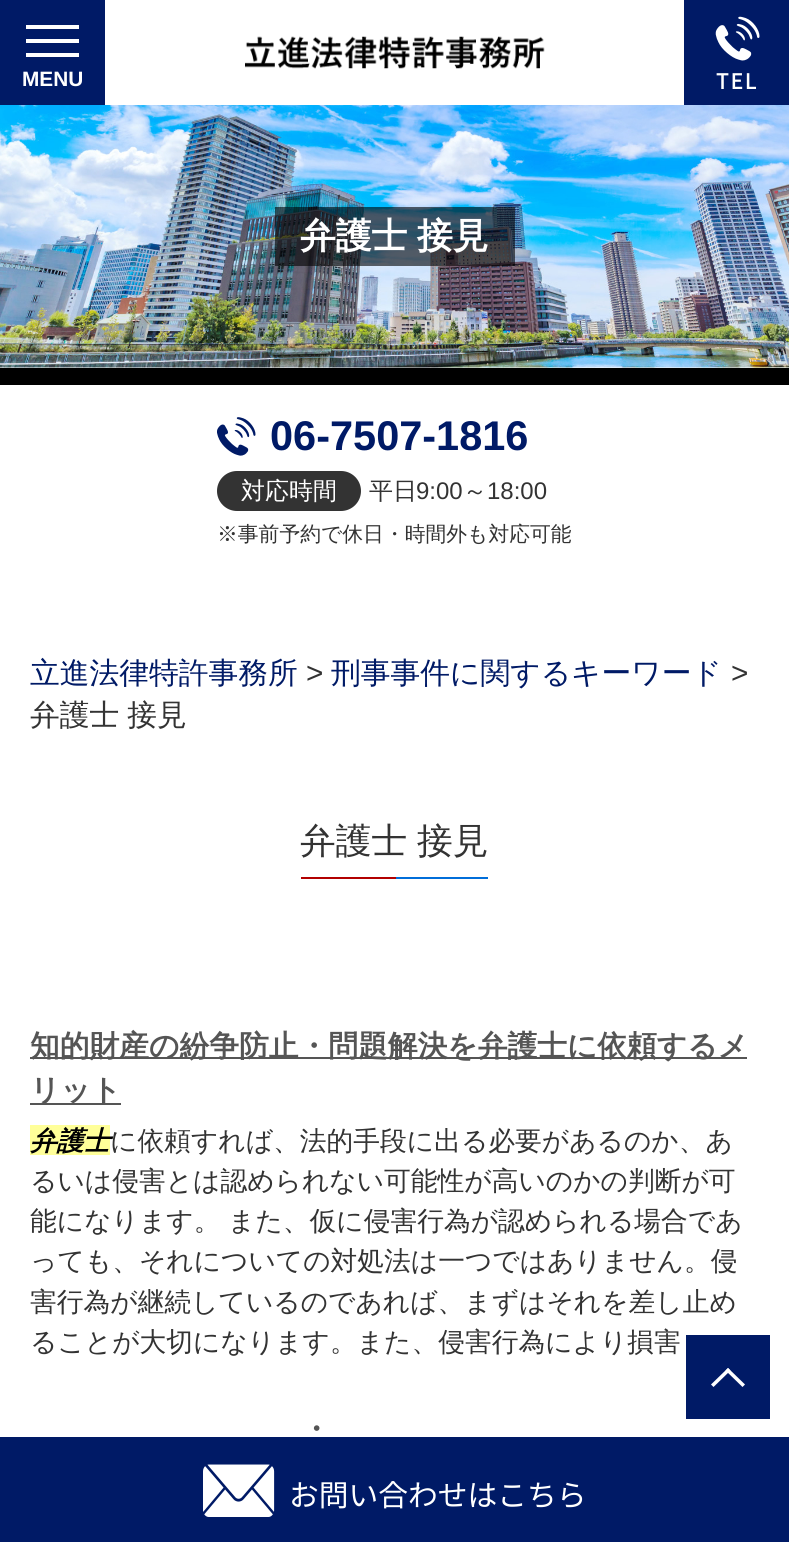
import math
import cairo

surface = cairo.ImageSurface(cairo.FORMAT_RGB24, 789, 1542)
ctx = cairo.Context(surface)
options = cairo.FontOptions()
options.set_hint_metrics(cairo.HINT_METRICS_OFF)
options.set_hint_style(cairo.HINT_STYLE_NONE)
ctx.set_font_options(options)
ctx.set_miter_limit(4)


def set_color(code):
    ctx.set_source_rgb(*(v / 255 for v in bytes.fromhex(code[-6:])))


def draw_text(x, y, s, family, size, color, bold=False, italic=False):
    ctx.select_font_face(family, cairo.FONT_SLANT_ITALIC if italic else cairo.FONT_SLANT_NORMAL, cairo.FONT_WEIGHT_BOLD if bold else cairo.FONT_WEIGHT_NORMAL)
    ctx.set_font_size(size)
    set_color(color)
    ctx.move_to(x, y)
    ctx.show_text(s)


def draw_spaced(x, y, s, letter, word):
    ctx.move_to(x, y)
    for ch in s:
        ctx.show_text(ch)
        ctx.rel_move_to(letter + word * (ch == ' '), 0)


def fill_rect(x, y, w, h, color):
    set_color(color)
    ctx.rectangle(x, y, w, h)
    ctx.fill()


def rounded_rect(x, y, w, h, r):
    ctx.new_sub_path()
    for i, (u, v) in enumerate([(x + w - r, y + h - r), (x + r, y + h - r), (x + r, y + r), (x + w - r, y + r)]):
        ctx.arc(u, v, r, i * math.pi / 2, (i + 1) * math.pi / 2)
    ctx.close_path()


def draw_image(path, x, y, w, h):
    ctx.save()
    ctx.set_source_surface(cairo.ImageSurface.create_from_png(path), x, y)
    ctx.rectangle(x, y, w, h)
    ctx.fill()
    ctx.restore()


set_color("#ffffff")
ctx.paint()
fill_rect(0, 0, 105, 105, "#001a66")
fill_rect(26, 39, 53, 4, "#ffffff")
fill_rect(26, 25, 53, 4, "#ffffff")
fill_rect(26, 53, 53, 4, "#ffffff")
draw_text(22, 86, "MENU", "Liberation Sans", 20.8, "#ffffff", bold=True)
fill_rect(684, 0, 105, 105, "#001a66")
draw_image("assets/img1.png", 715, 16, 45, 45)
ctx.select_font_face("Noto Sans JP", cairo.FONT_SLANT_NORMAL, cairo.FONT_WEIGHT_BOLD)
set_color("#ffffff")
draw_spaced(716, 89, "TEL", 2, 0)
draw_image("assets/img2.png", 0, 105, 789, 263)
fill_rect(0, 368, 789, 17, "#000000")
ctx.set_source_rgba(0, 0, 0, 0.6)
ctx.rectangle(275, 207, 240, 59)
ctx.fill()
ctx.select_font_face("WenQuanYi Zen Hei", cairo.FONT_SLANT_NORMAL, cairo.FONT_WEIGHT_BOLD)
ctx.set_font_size(35.75)
set_color("#ffffff")
draw_spaced(300, 248, "弁護士 接見", 0, -1)
draw_image("assets/img3.png", 245, 36, 300, 33)
draw_image("assets/img4.png", 217, 417, 39, 39)
draw_text(270, 450, "06-7507-1816", "Liberation Sans", 41.5, "#001a66", bold=True)
set_color("#333333")
rounded_rect(217, 471, 144, 40, 20)
ctx.fill()
draw_text(241, 499, "対応時間", "WenQuanYi Zen Hei Medium", 24, "#ffffff")
draw_text(369, 499, "平日", "WenQuanYi Zen Hei Medium", 24, "#333333")
draw_text(416, 499, "9:00", "Liberation Sans", 24, "#333333")
draw_text(463, 499, "～", "WenQuanYi Zen Hei Medium", 24, "#333333")
draw_text(487, 499, "18:00", "Liberation Sans", 24, "#333333")
draw_text(217, 541, "※事前予約で休日・時間外も対応可能", "WenQuanYi Zen Hei Medium", 20.8, "#333333")
fill_rect(0, 1437, 789, 105, "#001a66")
draw_image("assets/img5.png", 203, 1464, 72, 53)
draw_text(289, 1506, "お問い合わせはこちら", "Noto Sans JP Thin", 29.75, "#ffffff")
draw_text(30, 683, "立進法律特許事務所", "WenQuanYi Zen Hei Medium", 29.75, "#001a66")
draw_text(306, 683, ">", "Liberation Sans", 29.75, "#333333")
draw_text(331, 683, "刑事事件に関するキーワード", "WenQuanYi Zen Hei Medium", 29.75, "#001a66")
draw_text(731, 683, ">", "Liberation Sans", 29.75, "#333333")
ctx.select_font_face("WenQuanYi Zen Hei Medium")
draw_spaced(30, 725, "弁護士 接見", 0, -1)
ctx.set_font_size(35.75)
draw_spaced(300, 853, "弁護士 接見", 0, -1)
fill_rect(301, 877, 95, 2, "#b20000")
fill_rect(396, 877, 92, 2, "#006dd9")
fill_rect(30, 1057, 717, 2, "#555555")
draw_text(30, 1056, "知的財産の紛争防止・問題解決を弁護士に依頼するメ", "WenQuanYi Zen Hei", 29.75, "#555555", bold=True)
fill_rect(30, 1103, 91, 2, "#555555")
draw_text(30, 1100, "リット", "WenQuanYi Zen Hei", 29.75, "#555555", bold=True)
fill_rect(30, 1125, 80, 30, "#ffff99")
draw_text(30, 1150, "弁護士", "WenQuanYi Zen Hei", 26.75, "#000000", bold=True, italic=True)
draw_text(110, 1150, "に依頼すれば、法的手段に出る必要があるのか、あ", "WenQuanYi Zen Hei Medium", 26.75, "#333333")
draw_text(30, 1190, "るいは侵害とは認められない可能性が高いのかの判断が可", "WenQuanYi Zen Hei Medium", 26.75, "#333333")
draw_text(30, 1230, "能になります。", "WenQuanYi Zen Hei Medium", 26.75, "#333333")
draw_text(228, 1230, "また、仮に侵害行為が認められる場合であ", "WenQuanYi Zen Hei Medium", 26.75, "#333333")
draw_text(30, 1270, "っても、それについての対処法は一つではありません。侵", "WenQuanYi Zen Hei Medium", 26.75, "#333333")
draw_text(30, 1311, "害行為が継続しているのであれば、まずはそれを差し止め", "WenQuanYi Zen Hei Medium", 26.75, "#333333")
draw_text(30, 1351, "ることが大切になります。また、侵害行為により損害", "WenQuanYi Zen Hei Medium", 26.75, "#333333")
draw_text(301, 1439, "・", "WenQuanYi Zen Hei", 29.75, "#555555", bold=True)
fill_rect(686, 1335, 84, 84, "#001a66")
set_color("#ffffff")
ctx.new_path()
ctx.move_to(711, 1384.5)
ctx.line_to(728, 1368)
ctx.line_to(730.5, 1370.5)
ctx.line_to(713.5, 1387)
ctx.close_path()
ctx.fill()
ctx.new_path()
ctx.move_to(725.5, 1370.5)
ctx.line_to(728, 1368)
ctx.line_to(745, 1384.5)
ctx.line_to(742.5, 1387)
ctx.close_path()
ctx.fill()
surface.write_to_png("output.png")
